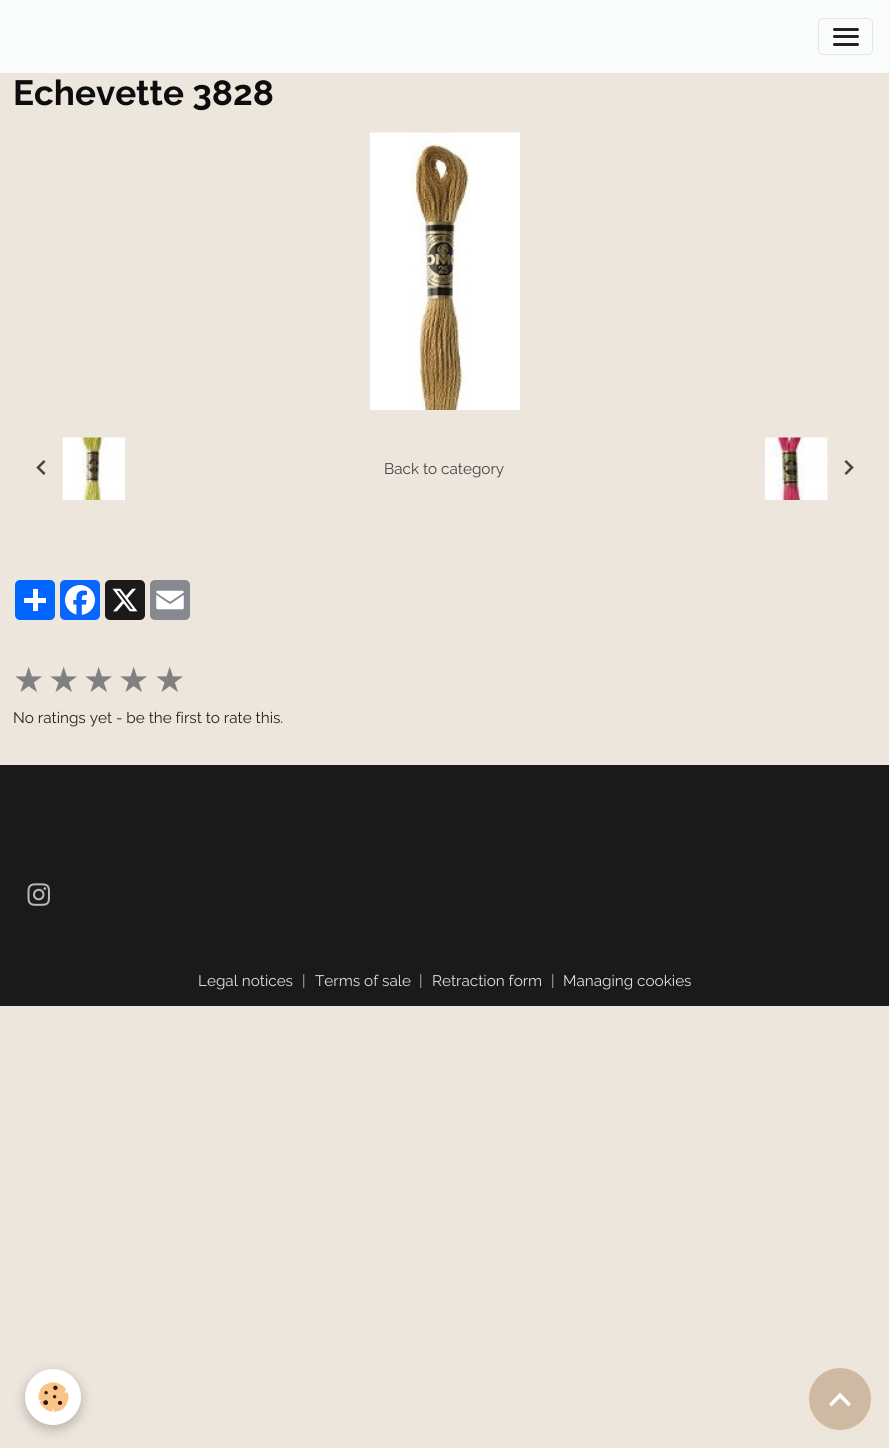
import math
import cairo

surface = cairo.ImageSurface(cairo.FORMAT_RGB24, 889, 1448)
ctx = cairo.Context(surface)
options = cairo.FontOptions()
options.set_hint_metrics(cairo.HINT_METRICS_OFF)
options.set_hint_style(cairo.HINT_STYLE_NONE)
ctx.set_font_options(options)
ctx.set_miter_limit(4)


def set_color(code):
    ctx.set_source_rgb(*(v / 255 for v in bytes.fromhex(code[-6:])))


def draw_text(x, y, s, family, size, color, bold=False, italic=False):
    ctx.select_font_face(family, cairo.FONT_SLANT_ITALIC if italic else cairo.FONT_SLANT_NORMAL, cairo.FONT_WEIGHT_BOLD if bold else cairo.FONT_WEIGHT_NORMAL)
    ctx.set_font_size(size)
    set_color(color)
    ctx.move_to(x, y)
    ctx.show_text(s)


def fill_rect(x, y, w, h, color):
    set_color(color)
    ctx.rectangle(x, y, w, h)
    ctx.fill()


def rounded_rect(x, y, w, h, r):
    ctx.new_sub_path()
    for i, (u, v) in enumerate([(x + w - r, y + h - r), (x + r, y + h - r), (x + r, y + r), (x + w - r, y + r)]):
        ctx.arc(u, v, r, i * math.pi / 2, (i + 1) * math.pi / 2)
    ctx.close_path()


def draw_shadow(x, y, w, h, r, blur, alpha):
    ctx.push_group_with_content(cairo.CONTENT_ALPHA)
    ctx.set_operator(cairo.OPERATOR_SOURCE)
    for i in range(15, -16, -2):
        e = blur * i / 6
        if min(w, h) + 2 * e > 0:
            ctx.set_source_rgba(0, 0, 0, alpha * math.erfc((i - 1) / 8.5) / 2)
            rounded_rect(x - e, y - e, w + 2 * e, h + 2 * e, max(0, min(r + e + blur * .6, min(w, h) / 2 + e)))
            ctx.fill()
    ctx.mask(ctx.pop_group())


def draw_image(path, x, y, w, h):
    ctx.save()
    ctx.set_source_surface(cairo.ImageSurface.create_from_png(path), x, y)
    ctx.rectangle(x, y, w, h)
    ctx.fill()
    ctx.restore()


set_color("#ece6dd")
ctx.paint()
fill_rect(0, 0, 889, 73, "#fafbfb")
rounded_rect(818.5, 18.5, 54, 36, 4.5)
set_color("#e4e5e5")
ctx.set_line_width(1)
ctx.stroke()
set_color("#222222")
rounded_rect(833, 28, 26, 3, 1.5)
ctx.fill()
rounded_rect(833, 35, 26, 3, 1.5)
ctx.fill()
rounded_rect(833, 43, 26, 3, 1.5)
ctx.fill()
draw_text(13, 105, "Echevette 3828", "Raleway", 35, "#0d0d0d", bold=True)
draw_image("assets/img1.png", 370, 132, 150, 278)
draw_image("assets/img2.png", 36, 460, 10, 15)
draw_image("assets/img3.png", 62, 437, 63, 63)
draw_text(384, 474, "Back to category", "Raleway", 15.3, "#444444")
draw_image("assets/img4.png", 765, 437, 63, 63)
draw_image("assets/img5.png", 844, 460, 10, 15)
set_color("#0166ff")
rounded_rect(15, 580, 40, 40, 5)
ctx.fill()
fill_rect(33, 589, 5, 22, "#ffffff")
fill_rect(24, 598, 22, 5, "#ffffff")
set_color("#0866ff")
rounded_rect(60, 580, 40, 40, 5)
ctx.fill()
draw_image("assets/img6.png", 65, 585, 30, 30)
set_color("#1a1a1a")
rounded_rect(105, 580, 40, 40, 5)
ctx.fill()
draw_image("assets/img7.png", 112, 588, 26, 24)
set_color("#888990")
rounded_rect(150, 580, 40, 40, 5)
ctx.fill()
draw_image("assets/img8.png", 156, 590, 28, 20)
draw_text(13, 692, "★", "DejaVu Sans", 35, "#808080")
draw_text(48, 692, "★", "DejaVu Sans", 35, "#808080")
draw_text(83, 692, "★", "DejaVu Sans", 35, "#808080")
draw_text(118, 692, "★", "DejaVu Sans", 35, "#808080")
draw_text(154, 692, "★", "DejaVu Sans", 35, "#808080")
draw_text(13, 723, "No ratings yet - be the first to rate this.", "Raleway", 15.3, "#232323")
fill_rect(0, 765, 889, 241, "#1a1a1a")
draw_image("assets/img9.png", 27, 883, 23, 23)
draw_text(198, 986, "Legal notices", "Raleway", 15.3, "#dfdfdf")
draw_text(302, 986, "|", "Raleway", 15.3, "#b8b8b8")
draw_text(315, 986, "Terms of sale", "Raleway", 15.3, "#dfdfdf")
draw_text(419, 986, "|", "Raleway", 15.3, "#b8b8b8")
draw_text(432, 986, "Retraction form", "Raleway", 15.3, "#dfdfdf")
draw_text(551, 986, "|", "Raleway", 15.3, "#b8b8b8")
draw_text(563, 986, "Managing cookies", "Raleway", 15.3, "#dfdfdf")
set_color("#000000")
draw_shadow(25, 1373, 56, 56, 28, 6, 0.24)
set_color("#ffffff")
ctx.arc(53, 1397, 28, 0, 2 * math.pi)
ctx.fill()
draw_image("assets/img10.png", 38, 1382, 31, 30)
set_color("#cebaa2")
ctx.arc(840, 1399, 31, 0, 2 * math.pi)
ctx.fill()
set_color("#ffffff")
ctx.new_path()
ctx.move_to(840, 1392.5)
ctx.line_to(851, 1404)
ctx.line_to(848.5, 1406.5)
ctx.line_to(840, 1398)
ctx.line_to(831.5, 1406.5)
ctx.line_to(829, 1404)
ctx.close_path()
ctx.fill()
surface.write_to_png("output.png")
